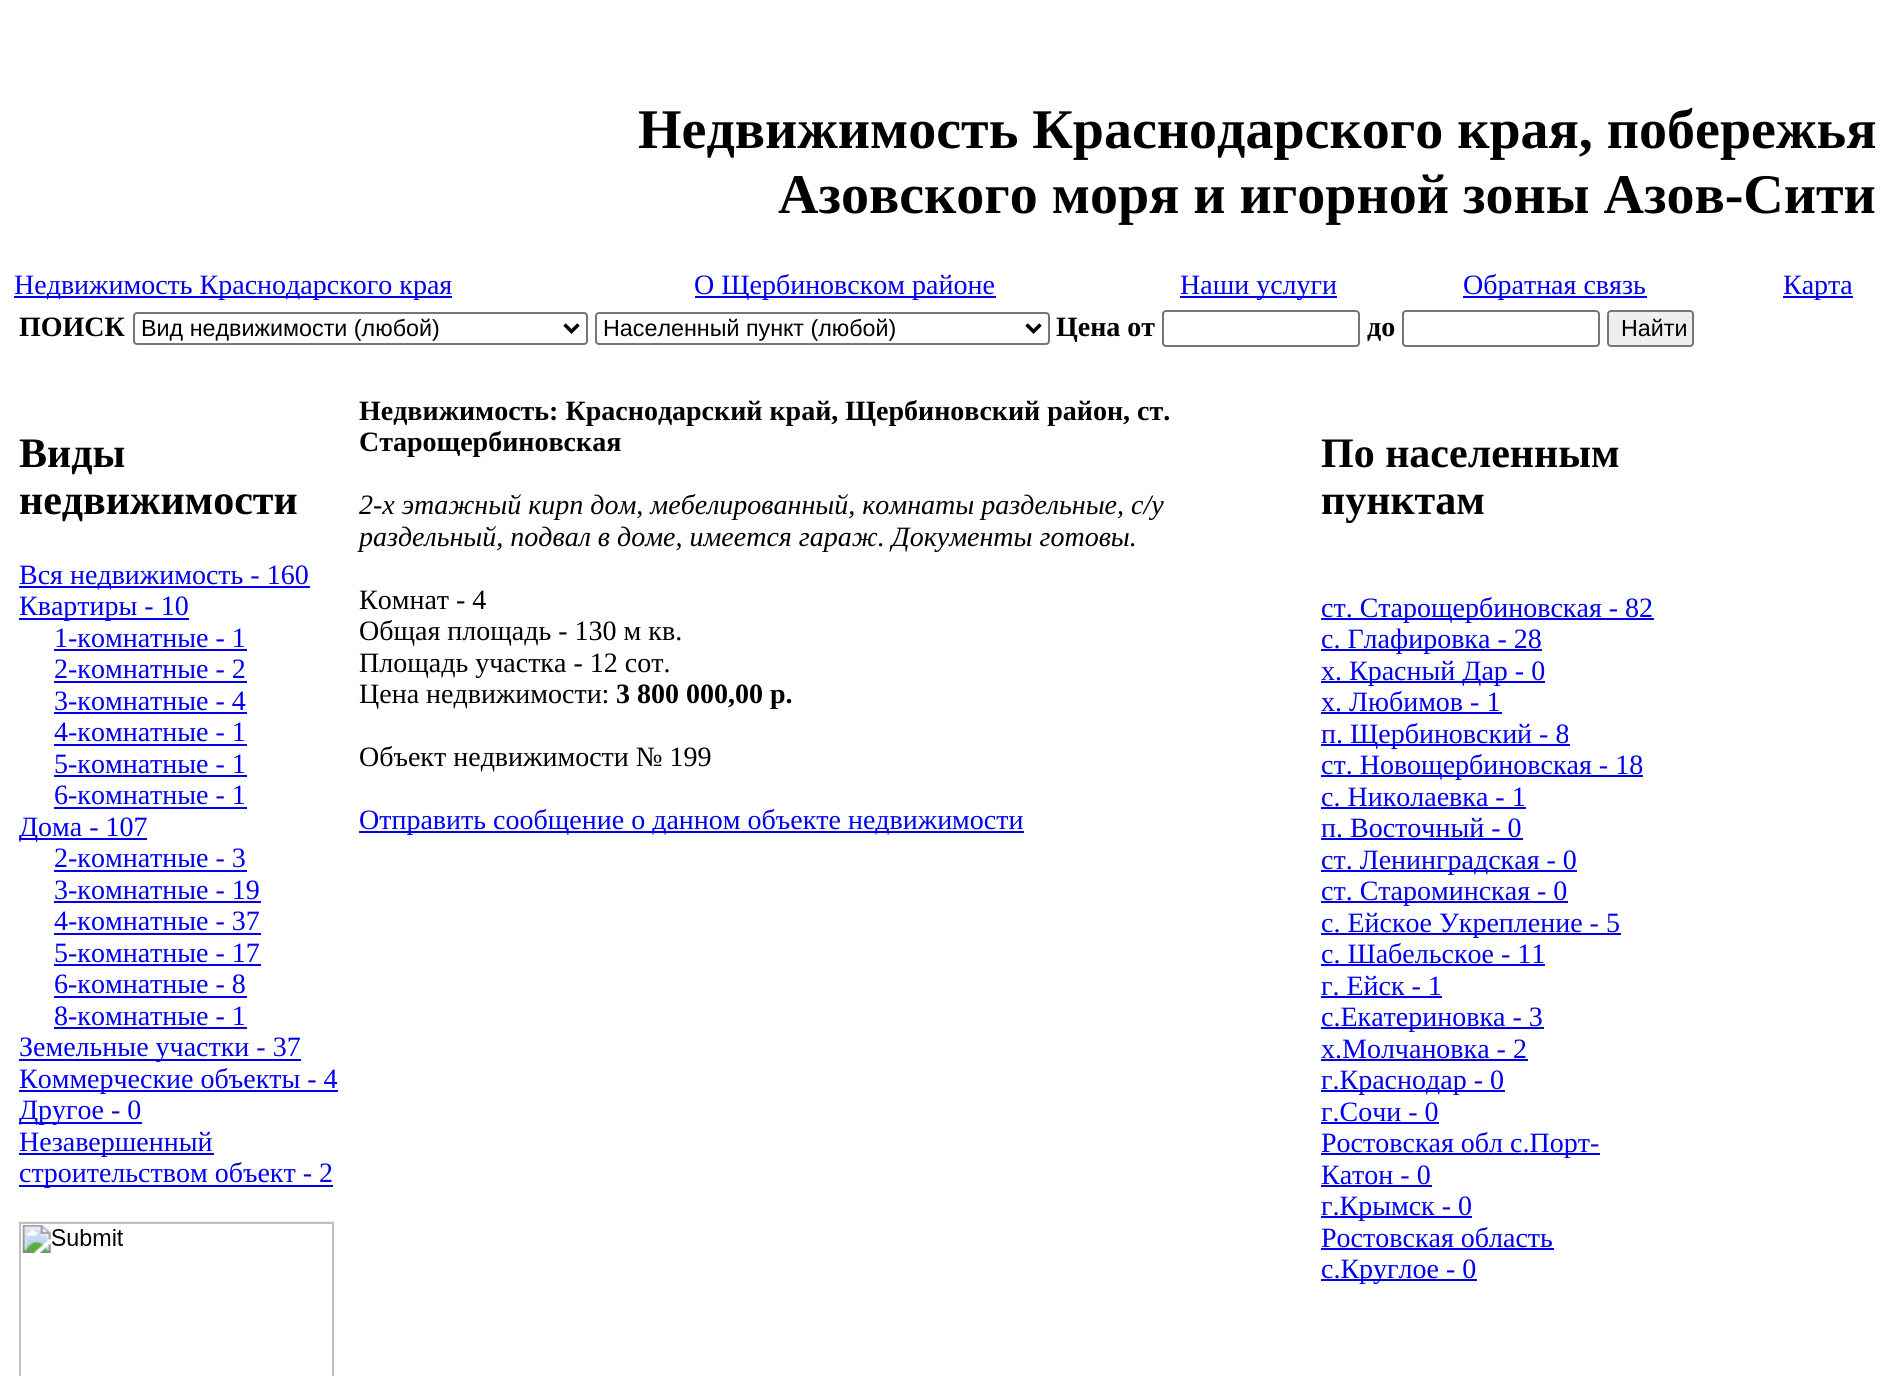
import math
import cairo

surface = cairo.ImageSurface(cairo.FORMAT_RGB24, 1894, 1376)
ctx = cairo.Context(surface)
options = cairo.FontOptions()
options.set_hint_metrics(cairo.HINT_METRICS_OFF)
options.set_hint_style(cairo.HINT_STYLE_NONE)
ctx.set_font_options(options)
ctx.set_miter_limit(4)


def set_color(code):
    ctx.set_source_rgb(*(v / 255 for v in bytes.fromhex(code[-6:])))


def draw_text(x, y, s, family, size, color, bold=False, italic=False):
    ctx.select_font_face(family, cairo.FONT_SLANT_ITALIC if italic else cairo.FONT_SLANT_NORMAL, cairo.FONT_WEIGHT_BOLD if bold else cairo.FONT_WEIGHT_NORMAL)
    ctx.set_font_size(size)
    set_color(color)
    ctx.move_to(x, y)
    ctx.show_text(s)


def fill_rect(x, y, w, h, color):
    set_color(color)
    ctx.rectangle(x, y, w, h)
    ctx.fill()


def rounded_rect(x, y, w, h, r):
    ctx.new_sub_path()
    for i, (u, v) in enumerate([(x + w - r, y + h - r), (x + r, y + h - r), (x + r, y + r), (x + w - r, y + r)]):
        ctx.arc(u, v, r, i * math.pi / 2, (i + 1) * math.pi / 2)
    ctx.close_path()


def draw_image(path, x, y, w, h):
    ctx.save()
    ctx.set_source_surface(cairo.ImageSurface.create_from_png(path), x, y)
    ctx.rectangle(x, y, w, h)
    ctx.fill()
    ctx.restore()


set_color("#ffffff")
ctx.paint()
draw_text(638, 148, "Недвижимость Краснодарского края, побережья", "Liberation Serif", 56, "#000000", bold=True)
draw_text(778, 213, "Азовского моря и игорной зоны Азов-Сити", "Liberation Serif", 56, "#000000", bold=True)
fill_rect(14, 296, 438, 2, "#0000ee")
draw_text(14, 294, "Недвижимость Краснодарского края", "Liberation Serif", 28, "#0000ee")
fill_rect(695, 296, 301, 2, "#0000ee")
draw_text(694, 294, "О Щербиновском районе", "Liberation Serif", 28, "#0000ee")
fill_rect(1180, 296, 157, 2, "#0000ee")
draw_text(1180, 294, "Наши услуги", "Liberation Serif", 28, "#0000ee")
fill_rect(1463, 296, 184, 2, "#0000ee")
draw_text(1463, 294, "Обратная связь", "Liberation Serif", 28, "#0000ee")
fill_rect(1783, 296, 70, 2, "#0000ee")
draw_text(1783, 294, "Карта", "Liberation Serif", 28, "#0000ee")
draw_text(19, 336, "ПОИСК", "Liberation Serif", 28, "#000000", bold=True)
rounded_rect(134, 313, 453, 31, 3)
set_color("#767676")
ctx.stroke()
ctx.new_path()
ctx.move_to(564.5, 324.5)
ctx.line_to(571.5, 331.5)
ctx.line_to(578.5, 324.5)
set_color("#000000")
ctx.set_line_width(3.5)
ctx.stroke()
draw_text(141, 336, "Вид недвижимости (любой)", "Liberation Sans", 23.3, "#000000")
rounded_rect(596, 313, 453, 31, 3)
set_color("#767676")
ctx.set_line_width(2)
ctx.stroke()
ctx.new_path()
ctx.move_to(1026.5, 324.5)
ctx.line_to(1033.5, 331.5)
ctx.line_to(1040.5, 324.5)
set_color("#000000")
ctx.set_line_width(3.5)
ctx.stroke()
draw_text(603, 336, "Населенный пункт (любой)", "Liberation Sans", 23.3, "#000000")
draw_text(1056, 336, "Цена от", "Liberation Serif", 28, "#000000", bold=True)
rounded_rect(1163, 311, 196, 35, 3)
set_color("#767676")
ctx.set_line_width(2)
ctx.stroke()
draw_text(1367, 336, "до", "Liberation Serif", 28, "#000000", bold=True)
rounded_rect(1403, 311, 196, 35, 3)
set_color("#767676")
ctx.stroke()
set_color("#efefef")
rounded_rect(1608, 311, 85, 35, 3)
ctx.fill_preserve()
set_color("#767676")
ctx.stroke()
draw_text(1621, 336, "Найти", "Liberation Sans", 23.3, "#000000")
draw_text(19, 467, "Виды", "Liberation Serif", 42, "#000000", bold=True)
draw_text(19, 514, "недвижимости", "Liberation Serif", 42, "#000000", bold=True)
fill_rect(19, 586, 291, 2, "#0000ee")
draw_text(19, 584, "Вся недвижимость - 160", "Liberation Serif", 28, "#0000ee")
fill_rect(19, 618, 170, 2, "#0000ee")
draw_text(19, 615, "Квартиры - 10", "Liberation Serif", 28, "#0000ee")
draw_text(54, 647, "1-комнатные - 1", "Liberation Serif", 28, "#0000ee")
fill_rect(54, 649, 193, 2, "#0000ee")
draw_text(54, 678, "2-комнатные - 2", "Liberation Serif", 28, "#0000ee")
fill_rect(54, 681, 193, 2, "#0000ee")
draw_text(54, 710, "3-комнатные - 4", "Liberation Serif", 28, "#0000ee")
fill_rect(54, 712, 193, 2, "#0000ee")
draw_text(54, 741, "4-комнатные - 1", "Liberation Serif", 28, "#0000ee")
fill_rect(54, 744, 193, 2, "#0000ee")
draw_text(54, 773, "5-комнатные - 1", "Liberation Serif", 28, "#0000ee")
fill_rect(54, 775, 193, 2, "#0000ee")
draw_text(54, 804, "6-комнатные - 1", "Liberation Serif", 28, "#0000ee")
fill_rect(54, 807, 193, 2, "#0000ee")
fill_rect(19, 838, 128, 2, "#0000ee")
draw_text(19, 836, "Дома - 107", "Liberation Serif", 28, "#0000ee")
draw_text(54, 867, "2-комнатные - 3", "Liberation Serif", 28, "#0000ee")
fill_rect(54, 870, 193, 2, "#0000ee")
draw_text(54, 899, "3-комнатные - 19", "Liberation Serif", 28, "#0000ee")
fill_rect(54, 901, 207, 2, "#0000ee")
draw_text(54, 930, "4-комнатные - 37", "Liberation Serif", 28, "#0000ee")
fill_rect(54, 933, 207, 2, "#0000ee")
draw_text(54, 962, "5-комнатные - 17", "Liberation Serif", 28, "#0000ee")
fill_rect(54, 964, 207, 2, "#0000ee")
draw_text(54, 993, "6-комнатные - 8", "Liberation Serif", 28, "#0000ee")
fill_rect(54, 996, 193, 2, "#0000ee")
draw_text(54, 1025, "8-комнатные - 1", "Liberation Serif", 28, "#0000ee")
fill_rect(54, 1027, 193, 2, "#0000ee")
fill_rect(19, 1059, 282, 2, "#0000ee")
draw_text(19, 1056, "Земельные участки - 37", "Liberation Serif", 28, "#0000ee")
fill_rect(19, 1090, 319, 2, "#0000ee")
draw_text(19, 1088, "Коммерческие объекты - 4", "Liberation Serif", 28, "#0000ee")
fill_rect(19, 1122, 123, 2, "#0000ee")
draw_text(19, 1119, "Другое - 0", "Liberation Serif", 28, "#0000ee")
fill_rect(19, 1153, 195, 2, "#0000ee")
draw_text(19, 1151, "Незавершенный", "Liberation Serif", 28, "#0000ee")
fill_rect(19, 1185, 314, 2, "#0000ee")
draw_text(19, 1182, "строительством объект - 2", "Liberation Serif", 28, "#0000ee")
draw_image("assets/img1.png", 19, 1221, 316, 155)
ctx.rectangle(20, 1223, 313, 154)
set_color("#c0c0c0")
ctx.stroke()
draw_text(359, 420, "Недвижимость: Краснодарский край, Щербиновский район, ст.", "Liberation Serif", 28, "#000000", bold=True)
draw_text(359, 451, "Старощербиновская", "Liberation Serif", 28, "#000000", bold=True)
draw_text(359, 514, "2-х этажный кирп дом, мебелированный, комнаты раздельные, с/у", "Liberation Serif", 28, "#000000", italic=True)
draw_text(359, 546, "раздельный, подвал в доме, имеется гараж. Документы готовы.", "Liberation Serif", 28, "#000000", italic=True)
draw_text(359, 609, "Комнат - 4", "Liberation Serif", 28, "#000000")
draw_text(359, 640, "Общая площадь - 130 м кв.", "Liberation Serif", 28, "#000000")
draw_text(359, 672, "Площадь участка - 12 сот.", "Liberation Serif", 28, "#000000")
draw_text(359, 703, "Цена недвижимости:", "Liberation Serif", 28, "#000000")
draw_text(616, 703, "3 800 000,00 р.", "Liberation Serif", 28, "#000000", bold=True)
draw_text(359, 766, "Объект недвижимости № 199", "Liberation Serif", 28, "#000000")
fill_rect(359, 831, 665, 2, "#0000ee")
draw_text(359, 829, "Отправить сообщение о данном объекте недвижимости", "Liberation Serif", 28, "#0000ee")
draw_text(1321, 467, "По населенным", "Liberation Serif", 42, "#000000", bold=True)
draw_text(1321, 514, "пунктам", "Liberation Serif", 42, "#000000", bold=True)
fill_rect(1321, 618, 333, 2, "#0000ee")
draw_text(1321, 617, "ст. Старощербиновская - 82", "Liberation Serif", 28, "#0000ee")
fill_rect(1321, 649, 221, 2, "#0000ee")
draw_text(1321, 648, "с. Глафировка - 28", "Liberation Serif", 28, "#0000ee")
fill_rect(1321, 681, 224, 2, "#0000ee")
draw_text(1321, 680, "х. Красный Дар - 0", "Liberation Serif", 28, "#0000ee")
draw_text(1321, 711, "х. Любимов - 1", "Liberation Serif", 28, "#0000ee")
fill_rect(1321, 712, 181, 2, "#0000ee")
fill_rect(1321, 744, 249, 2, "#0000ee")
draw_text(1321, 743, "п. Щербиновский - 8", "Liberation Serif", 28, "#0000ee")
fill_rect(1321, 775, 322, 2, "#0000ee")
draw_text(1321, 774, "ст. Новощербиновская - 18", "Liberation Serif", 28, "#0000ee")
draw_text(1321, 806, "с. Николаевка - 1", "Liberation Serif", 28, "#0000ee")
fill_rect(1321, 807, 205, 2, "#0000ee")
draw_text(1321, 837, "п. Восточный - 0", "Liberation Serif", 28, "#0000ee")
fill_rect(1321, 838, 202, 2, "#0000ee")
fill_rect(1321, 870, 256, 2, "#0000ee")
draw_text(1321, 869, "ст. Ленинградская - 0", "Liberation Serif", 28, "#0000ee")
fill_rect(1321, 901, 247, 2, "#0000ee")
draw_text(1321, 900, "ст. Староминская - 0", "Liberation Serif", 28, "#0000ee")
fill_rect(1321, 933, 300, 2, "#0000ee")
draw_text(1321, 932, "с. Ейское Укрепление - 5", "Liberation Serif", 28, "#0000ee")
draw_text(1321, 963, "с. Шабельское - 11", "Liberation Serif", 28, "#0000ee")
fill_rect(1321, 964, 224, 2, "#0000ee")
draw_text(1321, 995, "г. Ейск - 1", "Liberation Serif", 28, "#0000ee")
fill_rect(1321, 996, 121, 2, "#0000ee")
fill_rect(1321, 1027, 223, 2, "#0000ee")
draw_text(1321, 1026, "с.Екатериновка - 3", "Liberation Serif", 28, "#0000ee")
draw_text(1321, 1058, "х.Молчановка - 2", "Liberation Serif", 28, "#0000ee")
fill_rect(1321, 1059, 207, 2, "#0000ee")
fill_rect(1321, 1090, 184, 2, "#0000ee")
draw_text(1321, 1089, "г.Краснодар - 0", "Liberation Serif", 28, "#0000ee")
draw_text(1321, 1121, "г.Сочи - 0", "Liberation Serif", 28, "#0000ee")
fill_rect(1321, 1122, 118, 2, "#0000ee")
fill_rect(1321, 1153, 279, 2, "#0000ee")
draw_text(1321, 1152, "Ростовская обл с.Порт-", "Liberation Serif", 28, "#0000ee")
draw_text(1321, 1184, "Катон - 0", "Liberation Serif", 28, "#0000ee")
fill_rect(1321, 1185, 111, 2, "#0000ee")
fill_rect(1321, 1216, 151, 2, "#0000ee")
draw_text(1321, 1215, "г.Крымск - 0", "Liberation Serif", 28, "#0000ee")
draw_text(1321, 1247, "Ростовская область", "Liberation Serif", 28, "#0000ee")
fill_rect(1321, 1248, 233, 2, "#0000ee")
fill_rect(1321, 1279, 156, 2, "#0000ee")
draw_text(1321, 1278, "с.Круглое - 0", "Liberation Serif", 28, "#0000ee")
surface.write_to_png("output.png")
